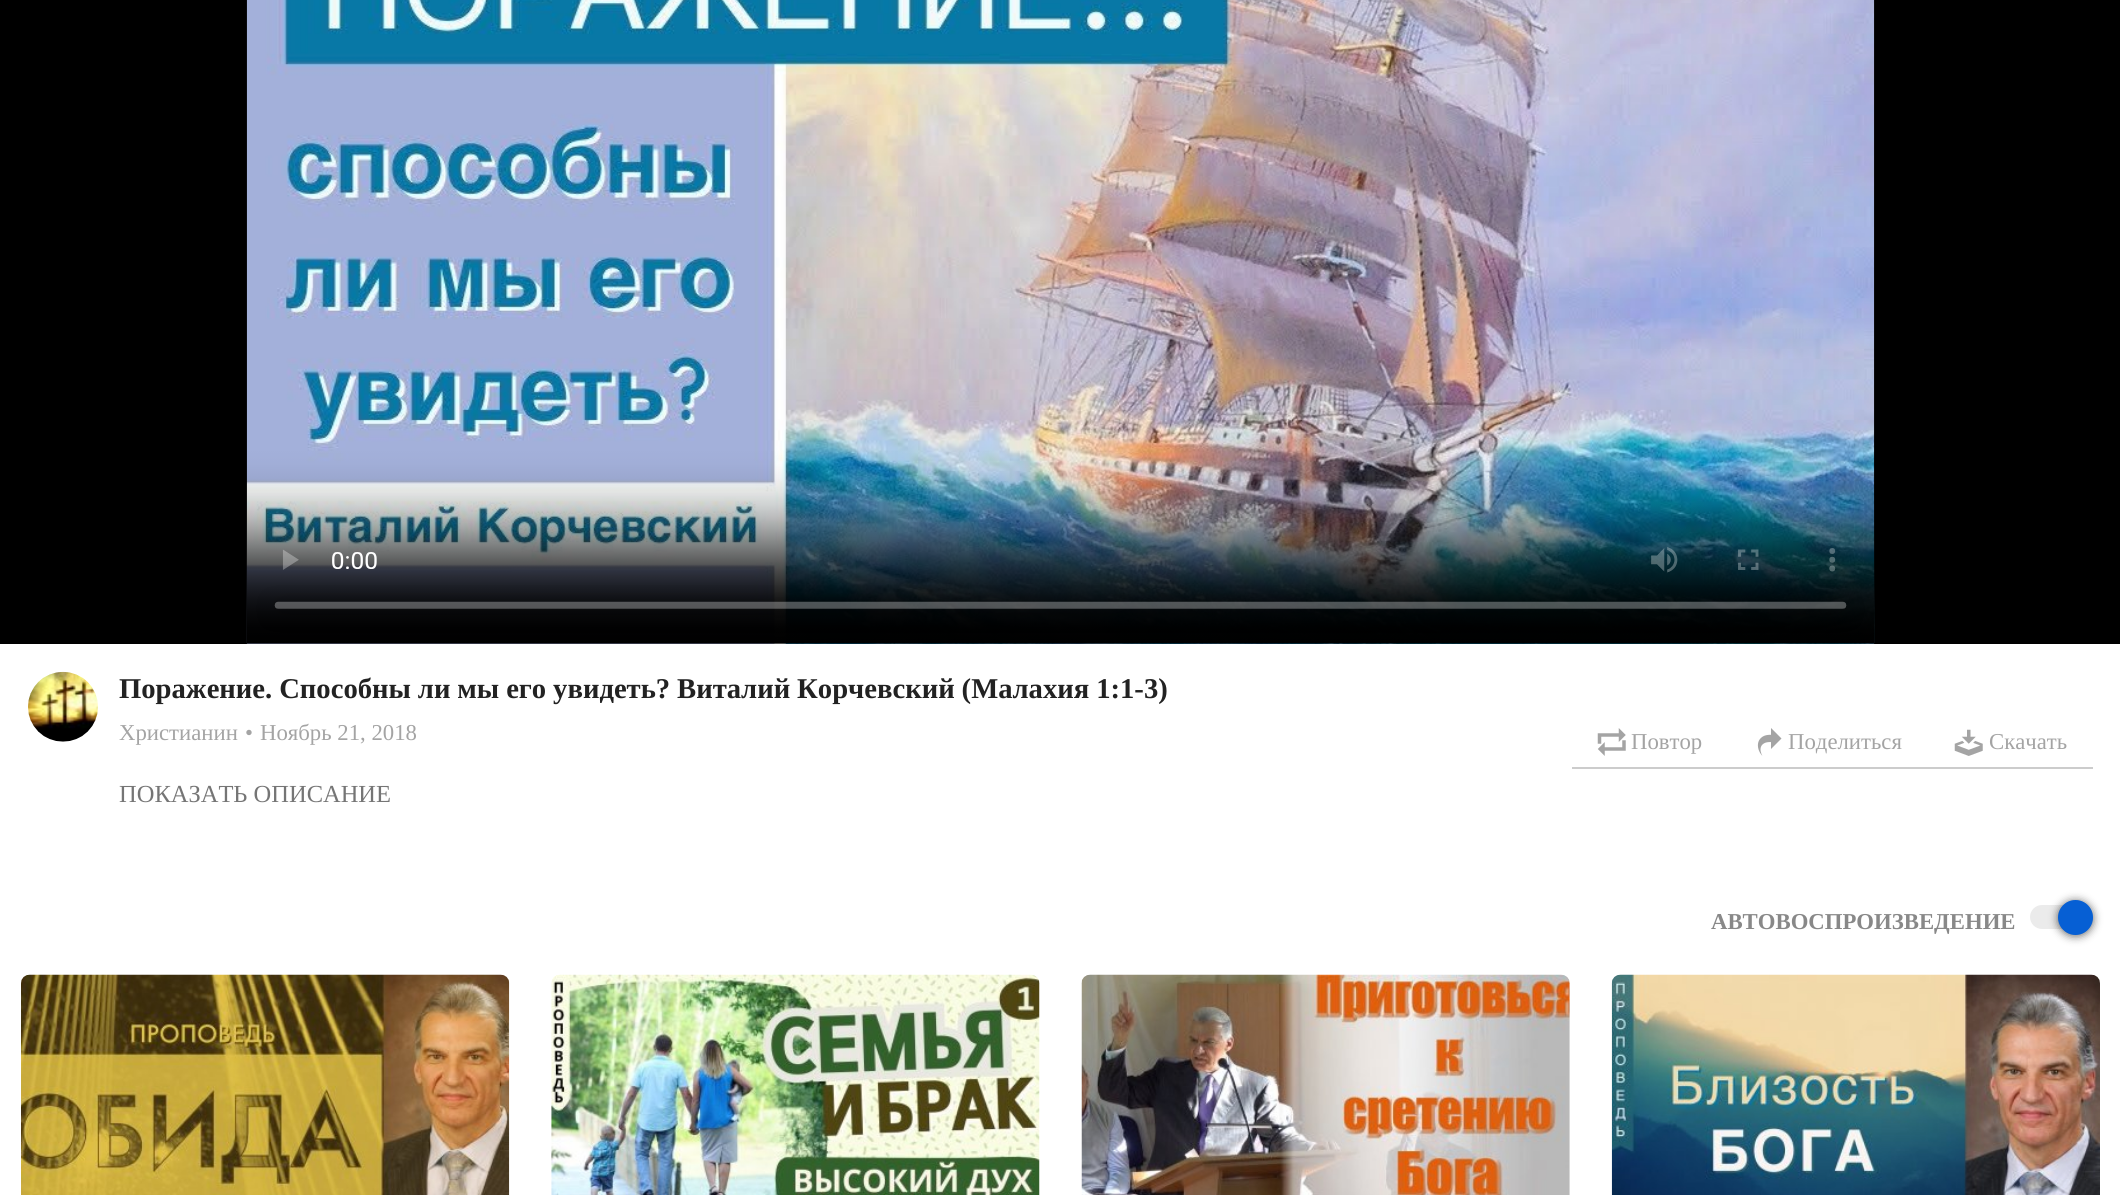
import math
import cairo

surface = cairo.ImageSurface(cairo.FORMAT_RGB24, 2120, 1195)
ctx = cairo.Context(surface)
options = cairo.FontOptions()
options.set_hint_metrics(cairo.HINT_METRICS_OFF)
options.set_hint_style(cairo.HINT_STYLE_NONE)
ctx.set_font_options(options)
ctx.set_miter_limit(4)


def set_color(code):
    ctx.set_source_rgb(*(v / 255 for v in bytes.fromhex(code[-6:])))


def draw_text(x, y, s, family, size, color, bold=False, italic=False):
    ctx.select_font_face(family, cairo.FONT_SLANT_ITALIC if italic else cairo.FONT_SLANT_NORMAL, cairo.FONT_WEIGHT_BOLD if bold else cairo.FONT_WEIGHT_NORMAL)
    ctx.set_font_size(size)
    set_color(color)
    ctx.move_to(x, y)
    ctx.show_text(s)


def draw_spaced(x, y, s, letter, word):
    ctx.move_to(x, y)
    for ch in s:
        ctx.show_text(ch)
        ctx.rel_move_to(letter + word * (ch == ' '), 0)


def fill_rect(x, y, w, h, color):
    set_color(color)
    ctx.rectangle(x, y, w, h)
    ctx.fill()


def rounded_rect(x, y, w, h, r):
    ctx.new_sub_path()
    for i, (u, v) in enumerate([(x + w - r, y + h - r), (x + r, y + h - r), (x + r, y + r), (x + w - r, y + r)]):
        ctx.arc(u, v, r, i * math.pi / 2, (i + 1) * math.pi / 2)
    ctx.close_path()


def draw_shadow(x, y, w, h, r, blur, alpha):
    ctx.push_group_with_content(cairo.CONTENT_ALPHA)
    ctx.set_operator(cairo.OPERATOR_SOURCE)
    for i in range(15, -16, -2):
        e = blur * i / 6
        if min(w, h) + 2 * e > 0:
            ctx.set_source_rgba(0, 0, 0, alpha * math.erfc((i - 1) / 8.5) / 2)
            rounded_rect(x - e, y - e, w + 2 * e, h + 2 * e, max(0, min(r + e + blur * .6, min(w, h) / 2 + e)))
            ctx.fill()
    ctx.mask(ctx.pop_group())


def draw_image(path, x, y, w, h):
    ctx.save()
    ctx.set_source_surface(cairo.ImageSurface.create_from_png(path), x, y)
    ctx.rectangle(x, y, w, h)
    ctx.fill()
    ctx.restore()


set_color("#ffffff")
ctx.paint()
fill_rect(0, 0, 2120, 644, "#000000")
draw_image("assets/img1.png", 246, 0, 1629, 644)
draw_image("assets/img2.png", 28, 671, 70, 71)
ctx.select_font_face("Liberation Serif", cairo.FONT_SLANT_NORMAL, cairo.FONT_WEIGHT_BOLD)
ctx.set_font_size(28.65)
set_color("#222222")
draw_spaced(119, 698, "Поражение. Способны ли мы его увидеть? Виталий Корчевский (Малахия 1:1-3)", 0, -0.25)
draw_text(119, 740, "Христианин", "Liberation Serif", 22.75, "#a4a4a4")
draw_text(245, 740, "•", "Liberation Serif", 22.75, "#a4a4a4")
draw_text(260, 740, "Ноябрь 21, 2018", "Liberation Serif", 22.75, "#a4a4a4")
fill_rect(1572, 767, 521, 2, "#cccccc")
draw_image("assets/img3.png", 1597, 728, 29, 28)
draw_text(1631, 749, "Повтор", "Liberation Serif", 22.75, "#a4a4a4")
draw_image("assets/img4.png", 1757, 728, 25, 28)
draw_text(1788, 749, "Поделиться", "Liberation Serif", 22.75, "#a4a4a4")
draw_image("assets/img5.png", 1954, 729, 29, 27)
draw_text(1989, 749, "Скачать", "Liberation Serif", 22.75, "#a4a4a4")
draw_text(119, 802, "ПОКАЗАТЬ ОПИСАНИЕ", "Liberation Serif", 24.5, "#757575")
draw_text(1711, 929, "АВТОВОСПРОИЗВЕДЕНИЕ", "Liberation Serif", 22.75, "#888888", bold=True)
set_color("#ebebeb")
rounded_rect(2030, 905, 63, 24, 12)
ctx.fill()
set_color("#000000")
draw_shadow(2058, 901, 35, 35, 17.5, 4.5, 0.6)
set_color("#065fd4")
ctx.arc(2075.5, 917.5, 17.5, 0, 2 * math.pi)
ctx.fill()
draw_image("assets/img6.png", 21, 974, 489, 221)
draw_image("assets/img7.png", 551, 974, 489, 221)
draw_image("assets/img8.png", 1081, 974, 489, 221)
draw_image("assets/img9.png", 1611, 974, 489, 221)
surface.write_to_png("output.png")
